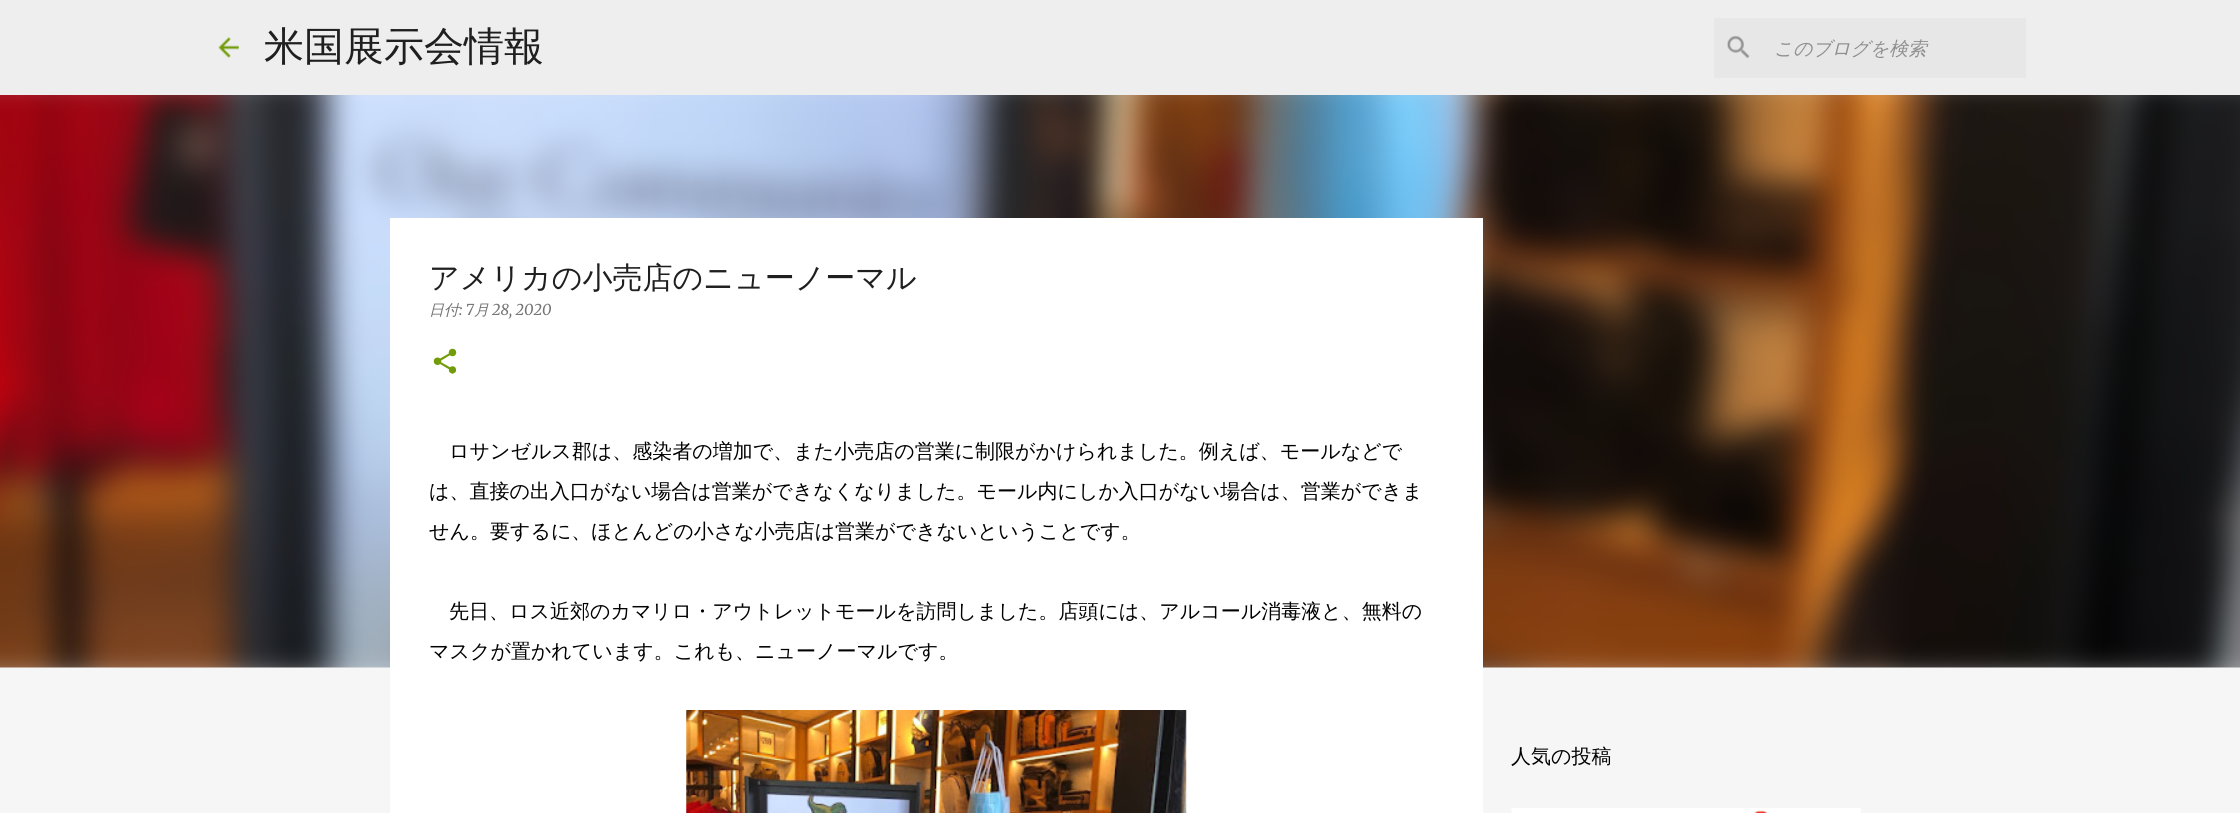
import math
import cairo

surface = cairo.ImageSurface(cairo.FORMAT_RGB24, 2240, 813)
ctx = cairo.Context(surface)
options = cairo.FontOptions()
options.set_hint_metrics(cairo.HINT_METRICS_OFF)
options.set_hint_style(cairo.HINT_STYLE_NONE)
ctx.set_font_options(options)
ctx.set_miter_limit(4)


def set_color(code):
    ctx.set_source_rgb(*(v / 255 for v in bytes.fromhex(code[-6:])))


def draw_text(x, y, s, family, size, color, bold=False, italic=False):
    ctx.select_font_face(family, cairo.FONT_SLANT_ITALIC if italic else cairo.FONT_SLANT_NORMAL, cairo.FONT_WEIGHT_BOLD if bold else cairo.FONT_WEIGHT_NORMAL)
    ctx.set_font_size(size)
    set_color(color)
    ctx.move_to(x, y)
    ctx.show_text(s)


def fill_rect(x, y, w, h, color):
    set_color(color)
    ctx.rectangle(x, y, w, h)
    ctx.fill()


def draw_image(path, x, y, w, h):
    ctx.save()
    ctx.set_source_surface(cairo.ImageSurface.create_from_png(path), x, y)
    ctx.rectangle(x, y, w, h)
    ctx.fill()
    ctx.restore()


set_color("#f6f6f6")
ctx.paint()
fill_rect(0, 0, 2240, 95, "#eeeeee")
draw_image("assets/img1.png", 218, 37, 21, 21)
draw_text(264, 60, "米国展示会情報", "WenQuanYi Zen Hei Medium", 40, "#1f1f1f")
fill_rect(1714, 18, 312, 60, "#e7e7e7")
draw_image("assets/img2.png", 1727, 35, 23, 24)
draw_text(1774, 55, "このブログを検索", "WenQuanYi Zen Hei Medium", 18.75, "#8f8f8f", italic=True)
draw_image("assets/img6.png", 0, 95, 2240, 573)
fill_rect(390, 218, 1093, 595, "#ffffff")
draw_text(429, 288, "アメリカの小売店のニューノーマル", "WenQuanYi Zen Hei Medium", 30, "#1f1f1f")
draw_text(429, 315, "日付", "WenQuanYi Zen Hei Medium", 15, "#747474", italic=True)
draw_text(459, 315, ": 7", "Merriweather", 15, "#747474", italic=True)
draw_text(474, 315, "月", "WenQuanYi Zen Hei Medium", 15, "#747474", italic=True)
draw_text(492, 315, "28, 2020", "Merriweather", 15, "#747474", italic=True)
draw_image("assets/img3.png", 433, 348, 24, 26)
draw_text(449, 458, "ロサンゼルス郡は、感染者の増加で、また小売店の営業に制限がかけられました。例えば、モールなどで", "WenQuanYi Zen Hei Medium", 20, "#000000")
draw_text(429, 498, "は、直接の出入口がない場合は営業ができなくなりました。モール内にしか入口がない場合は、営業ができま", "WenQuanYi Zen Hei Medium", 20, "#000000")
draw_text(429, 538, "せん。要するに、ほとんどの小さな小売店は営業ができないということです。", "WenQuanYi Zen Hei Medium", 20, "#000000")
draw_text(449, 618, "先日、ロス近郊のカマリロ・アウトレットモールを訪問しました。店頭には、アルコール消毒液と、無料の", "WenQuanYi Zen Hei Medium", 20, "#000000")
draw_text(429, 658, "マスクが置かれています。これも、ニューノーマルです。", "WenQuanYi Zen Hei Medium", 20, "#000000")
draw_image("assets/img4.png", 686, 710, 501, 103)
draw_text(1511, 763, "人気の投稿", "WenQuanYi Zen Hei Medium", 20, "#000000")
draw_image("assets/img5.png", 1511, 808, 350, 5)
surface.write_to_png("output.png")
